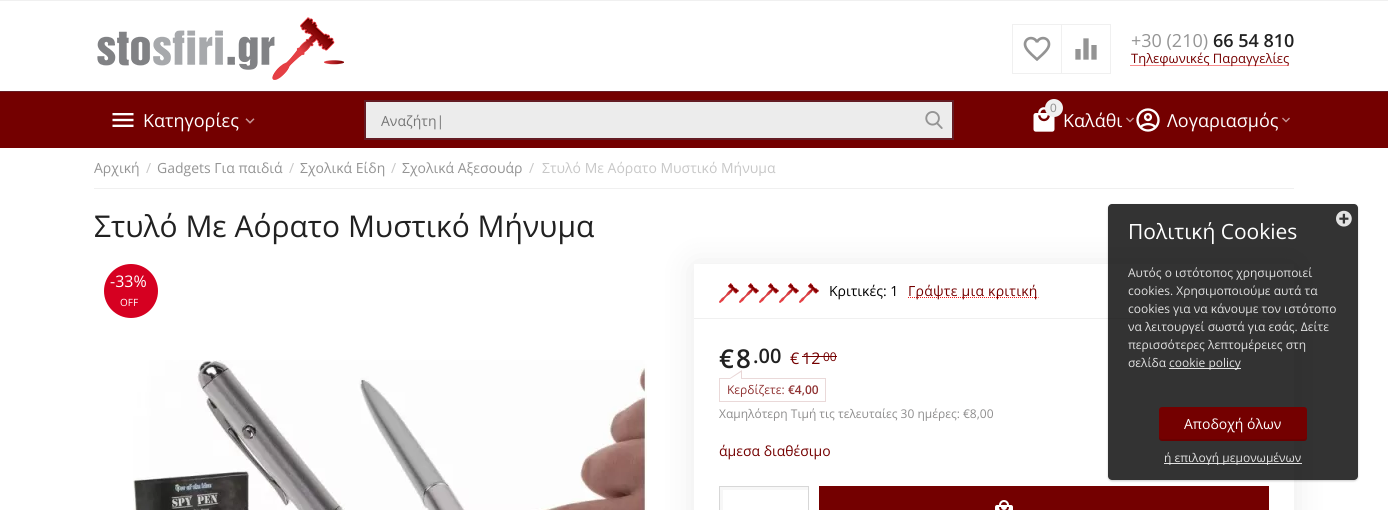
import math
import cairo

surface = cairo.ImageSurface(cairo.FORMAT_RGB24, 1388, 510)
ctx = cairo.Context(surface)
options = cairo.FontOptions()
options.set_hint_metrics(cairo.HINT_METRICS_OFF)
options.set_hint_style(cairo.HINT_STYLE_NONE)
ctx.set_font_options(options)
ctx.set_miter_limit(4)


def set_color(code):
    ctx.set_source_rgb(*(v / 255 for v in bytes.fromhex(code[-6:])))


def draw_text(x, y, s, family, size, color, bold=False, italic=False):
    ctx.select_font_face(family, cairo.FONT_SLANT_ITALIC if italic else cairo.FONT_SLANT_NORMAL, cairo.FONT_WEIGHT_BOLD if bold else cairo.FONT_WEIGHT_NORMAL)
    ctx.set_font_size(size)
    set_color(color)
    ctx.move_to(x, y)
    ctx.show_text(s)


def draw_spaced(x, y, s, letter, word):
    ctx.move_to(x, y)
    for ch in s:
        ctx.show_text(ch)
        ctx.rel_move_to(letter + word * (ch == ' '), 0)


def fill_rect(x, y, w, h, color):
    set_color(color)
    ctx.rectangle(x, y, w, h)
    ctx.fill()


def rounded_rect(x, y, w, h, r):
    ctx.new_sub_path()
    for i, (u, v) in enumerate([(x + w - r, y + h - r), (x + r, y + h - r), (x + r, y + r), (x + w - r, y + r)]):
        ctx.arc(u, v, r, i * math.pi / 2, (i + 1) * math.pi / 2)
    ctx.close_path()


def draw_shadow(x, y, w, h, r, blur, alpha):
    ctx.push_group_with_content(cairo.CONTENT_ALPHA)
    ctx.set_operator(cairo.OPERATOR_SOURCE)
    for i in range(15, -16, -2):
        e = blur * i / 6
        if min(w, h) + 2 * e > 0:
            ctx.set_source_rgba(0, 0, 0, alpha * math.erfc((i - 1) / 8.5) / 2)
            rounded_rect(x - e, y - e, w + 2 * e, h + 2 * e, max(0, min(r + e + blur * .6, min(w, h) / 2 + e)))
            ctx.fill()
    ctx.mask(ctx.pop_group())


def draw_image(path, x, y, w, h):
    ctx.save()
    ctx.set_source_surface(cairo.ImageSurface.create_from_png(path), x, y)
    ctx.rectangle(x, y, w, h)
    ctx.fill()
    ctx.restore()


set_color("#ffffff")
ctx.paint()
fill_rect(0, 0, 1388, 1, "#f0f0f0")
draw_image("assets/img1.png", 97, 17, 247, 63)
ctx.rectangle(1061.5, 24.5, 49, 49)
ctx.set_line_width(1)
ctx.stroke()
ctx.rectangle(1012.5, 24.5, 49, 49)
ctx.stroke()
draw_image("assets/img2.png", 1023, 36, 28, 25)
draw_image("assets/img3.png", 1075, 38, 22, 22)
draw_text(1131, 47, "+30 (210)", "Open Sans", 18, "#949494")
draw_text(1213, 47, "66 54 810", "Open Sans SemiBold", 18, "#212121")
ctx.new_path()
ctx.move_to(1130.5, 65.5)
ctx.line_to(1289, 65.5)
set_color("#f31a1a")
ctx.set_dash([1, 1])
ctx.stroke()
draw_text(1131, 63, "Τηλεφωνικές Παραγγελίες", "Open Sans", 13, "#740000")
fill_rect(0, 92, 1388, 56, "#740000")
fill_rect(0, 91, 1388, 1, "#641c24")
draw_image("assets/img4.png", 112, 113, 22, 14)
draw_text(143, 127, "Κατηγορίες", "Open Sans", 18, "#ffffff")
draw_image("assets/img5.png", 245, 118, 10, 6)
set_color("#ececec")
ctx.rectangle(365, 101, 588, 38)
ctx.fill_preserve()
set_color("#641c24")
ctx.set_line_width(2)
ctx.set_dash([])
ctx.stroke()
draw_text(381, 126, "Αναζήτη|", "Open Sans", 14, "#757575")
draw_image("assets/img6.png", 925, 111, 18, 18)
draw_image("assets/img7.png", 1033, 107, 22, 25)
set_color("#f0f0f0")
ctx.arc(1054, 108, 9, 0, 2 * math.pi)
ctx.fill()
draw_text(1050, 112, "0", "Liberation Sans", 12, "#949494")
draw_text(1063, 127, "Καλάθι", "Open Sans", 18, "#ffffff")
draw_image("assets/img8.png", 1126, 117, 8, 6)
draw_image("assets/img9.png", 1136, 108, 24, 24)
draw_text(1167, 127, "Λογαριασμός", "Open Sans", 18, "#ffffff")
draw_image("assets/img8.png", 1282, 117, 8, 6)
fill_rect(94, 188, 1200, 1, "#f0f0f0")
draw_text(94, 173, "Αρχική", "Open Sans", 14, "#949494")
draw_text(146, 173, "/", "Open Sans", 14, "#c7c7c7")
draw_text(157, 173, "Gadgets Για παιδιά", "Open Sans", 14, "#949494")
draw_text(289, 173, "/", "Open Sans", 14, "#c7c7c7")
draw_text(300, 173, "Σχολικά Είδη", "Open Sans", 14, "#949494")
draw_text(391, 173, "/", "Open Sans", 14, "#c7c7c7")
draw_text(402, 173, "Σχολικά Αξεσουάρ", "Open Sans", 14, "#949494")
draw_text(529, 173, "/", "Open Sans", 14, "#c7c7c7")
ctx.save()
ctx.rectangle(542, 160, 234, 16)
ctx.clip()
draw_text(542, 173, "Στυλό Με Αόρατο Μυστικό Μήνυμα", "Open Sans", 14, "#c7c7c7")
ctx.restore()
draw_text(94, 237, "Στυλό Με Αόρατο Μυστικό Μήνυμα", "Open Sans", 30, "#212121")
set_color("#d60021")
ctx.new_path()
ctx.arc(131, 291, 27, 0, 2 * math.pi)
ctx.fill()
draw_text(110, 287, "-33%", "Open Sans", 16, "#ffffff")
draw_text(120, 306, "OFF", "Open Sans", 10, "#ffffff")
ctx.save()
ctx.set_fill_rule(cairo.FILL_RULE_EVEN_ODD)
ctx.new_path()
ctx.move_to(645, 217)
ctx.line_to(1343, 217)
ctx.line_to(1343, 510)
ctx.line_to(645, 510)
ctx.close_path()
ctx.move_to(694, 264)
ctx.line_to(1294, 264)
ctx.line_to(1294, 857)
ctx.line_to(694, 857)
ctx.close_path()
ctx.clip()
set_color("#212121")
draw_shadow(694, 266, 600, 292, 0, 16, 0.1)
ctx.restore()
draw_image("assets/img10.png", 133, 360, 514, 150)
fill_rect(694, 318, 600, 1, "#f0f0f0")
draw_image("assets/img11.png", 719, 283, 100, 20)
draw_text(829, 296, "Κριτικές: 1", "Open Sans", 14, "#000000")
ctx.new_path()
ctx.move_to(908, 297.5)
ctx.line_to(1038.5, 297.5)
set_color("#f31a1a")
ctx.set_line_width(1)
ctx.set_dash([1, 1])
ctx.stroke()
set_color("#740000")
draw_spaced(908, 296, "Γράψτε μια κριτική", 0.25, 0)
draw_text(719, 368, "€", "Open Sans SemiBold", 26, "#212121")
draw_text(736, 368, "8", "Open Sans SemiBold", 26, "#212121")
draw_text(753, 363, ".00", "Open Sans SemiBold", 20, "#212121")
draw_text(790, 364, "€", "Open Sans", 16, "#740000")
draw_text(802, 364, "12", "Open Sans", 16, "#740000")
draw_text(823, 361, "00", "Open Sans", 12, "#740000")
fill_rect(802, 356, 35, 1, "#740000")
ctx.rectangle(719.5, 378.5, 106, 23)
set_color("#ead9d9")
ctx.set_dash([])
ctx.stroke()
set_color("#e9d6d6")
ctx.new_path()
ctx.move_to(742, 370)
ctx.line_to(742, 378)
ctx.line_to(730, 378)
ctx.close_path()
ctx.fill()
set_color("#ffffff")
ctx.new_path()
ctx.move_to(741, 372)
ctx.line_to(741, 379)
ctx.line_to(730, 379)
ctx.close_path()
ctx.fill()
draw_text(727, 394, "Κερδίζετε:", "Open Sans", 12, "#903333")
draw_text(788, 394, "€4,00", "Open Sans SemiBold", 12, "#903333")
draw_text(719, 418, "Χαμηλότερη Τιμή τις τελευταίες 30 ημέρες: €8,00", "Open Sans", 12, "#8d8c8c")
draw_text(719, 456, "άμεσα διαθέσιμο", "Open Sans", 14, "#740000")
ctx.save()
ctx.rectangle(720, 487, 88, 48)
ctx.clip()
set_color("#f7f7f7")
ctx.set_fill_rule(cairo.FILL_RULE_EVEN_ODD)
ctx.new_path()
ctx.move_to(621, 388)
ctx.line_to(907, 388)
ctx.line_to(907, 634)
ctx.line_to(621, 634)
ctx.close_path()
ctx.move_to(723, 490)
ctx.line_to(811, 490)
ctx.line_to(811, 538)
ctx.line_to(723, 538)
ctx.close_path()
ctx.fill()
ctx.restore()
ctx.rectangle(719.5, 486.5, 89, 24)
set_color("#d7d7d7")
ctx.stroke()
fill_rect(819, 486, 450, 24, "#740000")
draw_image("assets/img12.png", 995, 500, 18, 10)
ctx.save()
ctx.set_fill_rule(cairo.FILL_RULE_EVEN_ODD)
ctx.new_path()
ctx.move_to(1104, 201)
ctx.line_to(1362, 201)
ctx.line_to(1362, 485)
ctx.line_to(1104, 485)
ctx.close_path()
ctx.move_to(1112, 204)
ctx.line_to(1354, 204)
ctx.curve_to(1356, 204, 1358, 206, 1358, 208)
ctx.line_to(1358, 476)
ctx.curve_to(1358, 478, 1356, 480, 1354, 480)
ctx.line_to(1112, 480)
ctx.curve_to(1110, 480, 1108, 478, 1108, 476)
ctx.line_to(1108, 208)
ctx.curve_to(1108, 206, 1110, 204, 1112, 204)
ctx.close_path()
ctx.clip()
set_color("#000000")
draw_shadow(1108, 205, 250, 276, 4, 1, 0.2)
ctx.restore()
ctx.set_source_rgba(0, 0, 0, 0.8)
rounded_rect(1108, 204, 250, 276, 4)
ctx.fill()
draw_image("assets/img13.png", 1336, 210, 16, 17)
draw_text(1128, 239, "Πολιτική Cookies", "Open Sans", 21, "#ffffff")
draw_text(1128, 277, "Αυτός ο ιστότοπος χρησιμοποιεί", "Open Sans", 12, "#e2e2e2")
draw_text(1128, 295, "cookies. Χρησιμοποιούμε αυτά τα", "Open Sans", 12, "#e2e2e2")
draw_text(1128, 313, "cookies για να κάνουμε τον ιστότοπο", "Open Sans", 12, "#e2e2e2")
draw_text(1128, 331, "να λειτουργεί σωστά για εσάς. Δείτε", "Open Sans", 12, "#e2e2e2")
draw_text(1128, 349, "περισσότερες λεπτομέρειες στη", "Open Sans", 12, "#e2e2e2")
draw_text(1128, 367, "σελίδα", "Open Sans", 12, "#e2e2e2")
fill_rect(1169, 368, 72, 1, "#e2e2e2")
draw_text(1169, 367, "cookie policy", "Open Sans", 12, "#e2e2e2")
set_color("#740000")
rounded_rect(1159, 407, 148, 34, 3)
ctx.fill()
ctx.set_source_rgba(0, 0, 0, 0.1)
ctx.new_path()
ctx.move_to(1159, 436)
ctx.line_to(1159, 438)
ctx.curve_to(1159, 440, 1160, 441, 1162, 441)
ctx.line_to(1304, 441)
ctx.curve_to(1306, 441, 1307, 440, 1307, 438)
ctx.line_to(1307, 436)
ctx.curve_to(1307, 438, 1306, 439, 1304, 439)
ctx.line_to(1162, 439)
ctx.curve_to(1160, 439, 1159, 438, 1159, 436)
ctx.close_path()
ctx.fill()
draw_text(1184, 429, "Αποδοχή όλων", "Open Sans", 14, "#ffffff")
fill_rect(1164, 463, 138, 1, "#e2e2e2")
draw_text(1164, 462, "ή επιλογή μεμονωμένων", "Open Sans", 12, "#e2e2e2")
surface.write_to_png("output.png")
